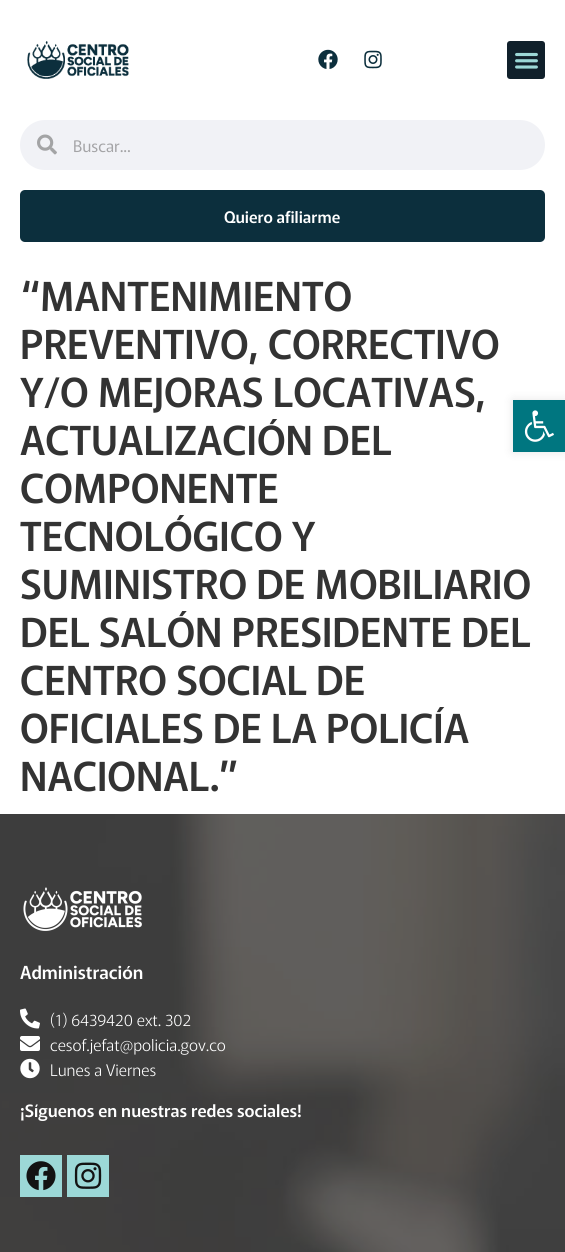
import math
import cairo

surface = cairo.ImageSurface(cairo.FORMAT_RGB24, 565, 1252)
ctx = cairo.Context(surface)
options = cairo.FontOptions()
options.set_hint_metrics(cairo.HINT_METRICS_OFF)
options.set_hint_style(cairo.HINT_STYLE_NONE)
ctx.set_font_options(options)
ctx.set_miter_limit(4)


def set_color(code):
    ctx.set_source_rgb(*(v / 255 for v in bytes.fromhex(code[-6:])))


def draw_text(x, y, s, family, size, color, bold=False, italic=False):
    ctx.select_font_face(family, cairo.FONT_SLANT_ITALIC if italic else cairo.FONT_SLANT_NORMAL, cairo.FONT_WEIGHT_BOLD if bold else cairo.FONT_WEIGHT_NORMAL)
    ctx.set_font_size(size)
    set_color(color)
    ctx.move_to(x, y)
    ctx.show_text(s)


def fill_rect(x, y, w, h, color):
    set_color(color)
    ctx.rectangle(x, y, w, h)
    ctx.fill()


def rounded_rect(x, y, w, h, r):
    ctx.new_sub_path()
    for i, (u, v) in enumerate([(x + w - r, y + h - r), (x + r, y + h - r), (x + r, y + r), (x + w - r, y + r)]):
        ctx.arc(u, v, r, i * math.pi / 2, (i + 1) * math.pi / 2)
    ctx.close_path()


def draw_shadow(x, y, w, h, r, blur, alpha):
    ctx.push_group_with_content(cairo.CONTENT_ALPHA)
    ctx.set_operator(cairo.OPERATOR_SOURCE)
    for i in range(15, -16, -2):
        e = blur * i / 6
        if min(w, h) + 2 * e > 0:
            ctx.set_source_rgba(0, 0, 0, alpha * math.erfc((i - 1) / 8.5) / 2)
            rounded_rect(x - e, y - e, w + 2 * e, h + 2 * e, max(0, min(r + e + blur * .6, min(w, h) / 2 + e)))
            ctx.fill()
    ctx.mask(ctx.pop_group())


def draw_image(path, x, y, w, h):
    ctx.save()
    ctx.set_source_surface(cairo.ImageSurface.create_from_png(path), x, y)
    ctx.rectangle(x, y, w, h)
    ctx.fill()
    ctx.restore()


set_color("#ffffff")
ctx.paint()
draw_image("assets/img1.png", 27, 41, 102, 38)
draw_image("assets/img2.png", 318, 49, 20, 20)
draw_image("assets/img3.png", 364, 50, 18, 19)
set_color("#10202b")
rounded_rect(507, 41, 38, 38, 3)
ctx.fill()
draw_image("assets/img4.png", 515, 52, 23, 17)
set_color("#f1f2f6")
rounded_rect(20, 120, 525, 50, 25)
ctx.fill()
draw_image("assets/img5.png", 37, 134, 20, 21)
draw_text(73, 152, "Buscar...", "Murecho", 16, "#a4a4a6")
set_color("#0c2f3d")
rounded_rect(20, 190, 525, 52, 5)
ctx.fill()
draw_text(224, 223, "Quiero afiliarme", "Murecho Medium", 16, "#ffffff")
draw_text(20, 311, "“MANTENIMIENTO", "Murecho Medium", 40, "#333333")
draw_text(20, 359, "PREVENTIVO, CORRECTIVO", "Murecho Medium", 40, "#333333")
draw_text(20, 407, "Y/O MEJORAS LOCATIVAS,", "Murecho Medium", 40, "#333333")
draw_text(20, 455, "ACTUALIZACIÓN DEL", "Murecho Medium", 40, "#333333")
draw_text(20, 503, "COMPONENTE", "Murecho Medium", 40, "#333333")
draw_text(20, 551, "TECNOLÓGICO Y", "Murecho Medium", 40, "#333333")
draw_text(20, 599, "SUMINISTRO DE MOBILIARIO", "Murecho Medium", 40, "#333333")
draw_text(20, 647, "DEL SALÓN PRESIDENTE DEL", "Murecho Medium", 40, "#333333")
draw_text(20, 695, "CENTRO SOCIAL DE", "Murecho Medium", 40, "#333333")
draw_text(20, 743, "OFICIALES DE LA POLICÍA", "Murecho Medium", 40, "#333333")
draw_text(20, 791, "NACIONAL.”", "Murecho Medium", 40, "#333333")
set_color("#000000")
draw_shadow(513, 400, 52, 52, 0, 5, 0.1)
fill_rect(513, 400, 52, 52, "#007680")
draw_image("assets/img6.png", 524, 410, 30, 32)
draw_image("assets/img7.png", 0, 814, 565, 438)
draw_image("assets/img8.png", 23, 887, 119, 44)
draw_text(20, 979, "Administración", "Murecho Medium", 18, "#ffffff")
draw_image("assets/img9.png", 20, 1008, 20, 21)
draw_text(50, 1026, "(1) 6439420 ext. 302", "Murecho Light", 16, "#ffffff")
draw_image("assets/img10.png", 20, 1036, 20, 15)
draw_text(50, 1051, "cesof.jefat@policia.gov.co", "Murecho Light", 16, "#ffffff")
draw_image("assets/img11.png", 20, 1058, 20, 21)
draw_text(50, 1076, "Lunes a Viernes", "Murecho Light", 16, "#ffffff")
draw_text(20, 1117, "¡Síguenos en nuestras redes sociales!", "Murecho Medium", 17, "#ffffff")
fill_rect(20, 1155, 42, 42, "#9cd8d7")
draw_image("assets/img12.png", 26, 1161, 30, 30)
fill_rect(67, 1155, 42, 42, "#9cd8d7")
draw_image("assets/img13.png", 74, 1162, 28, 27)
surface.write_to_png("output.png")
